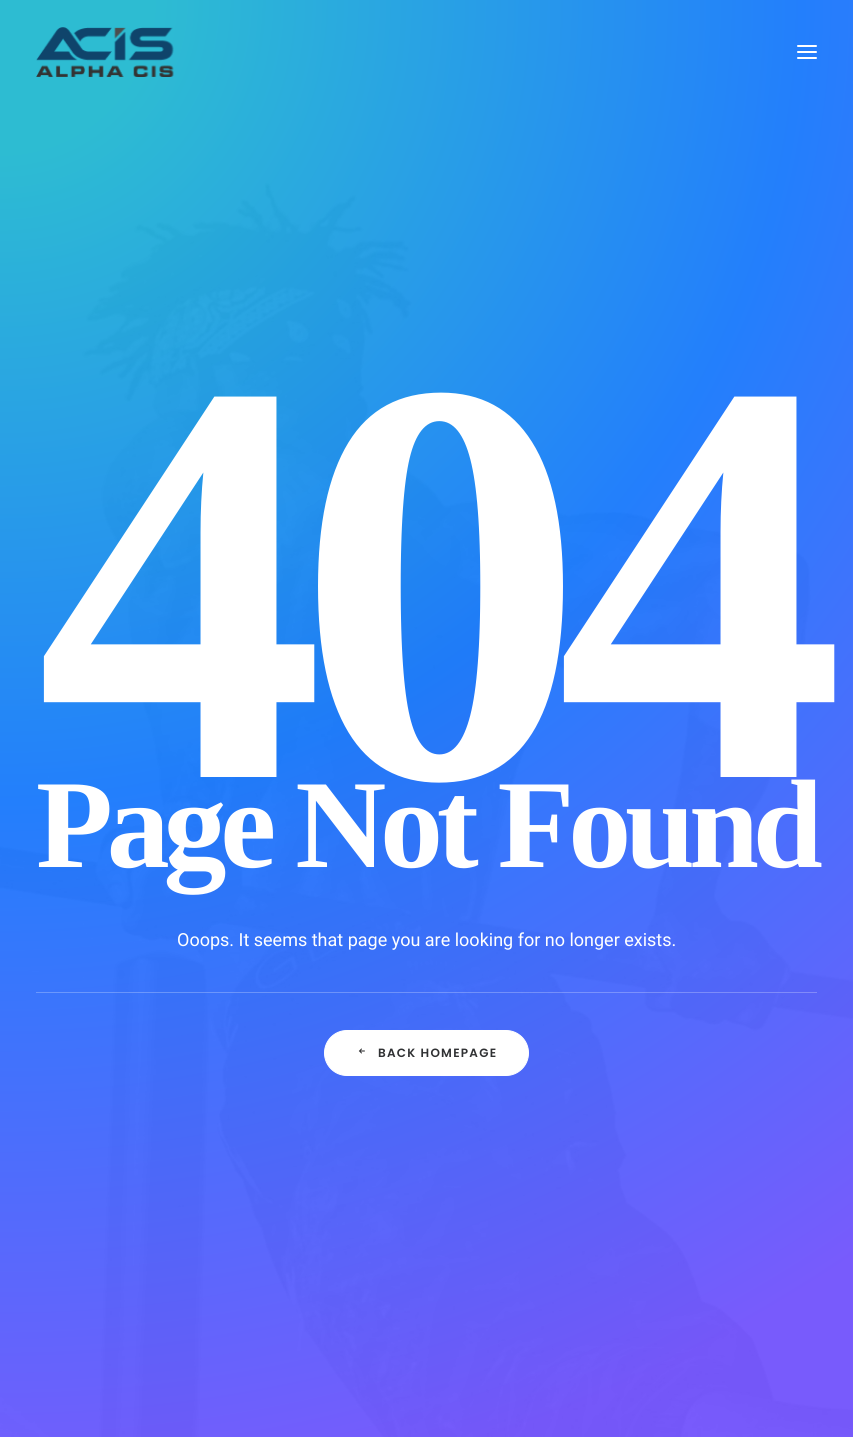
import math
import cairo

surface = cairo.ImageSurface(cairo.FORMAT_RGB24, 853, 1437)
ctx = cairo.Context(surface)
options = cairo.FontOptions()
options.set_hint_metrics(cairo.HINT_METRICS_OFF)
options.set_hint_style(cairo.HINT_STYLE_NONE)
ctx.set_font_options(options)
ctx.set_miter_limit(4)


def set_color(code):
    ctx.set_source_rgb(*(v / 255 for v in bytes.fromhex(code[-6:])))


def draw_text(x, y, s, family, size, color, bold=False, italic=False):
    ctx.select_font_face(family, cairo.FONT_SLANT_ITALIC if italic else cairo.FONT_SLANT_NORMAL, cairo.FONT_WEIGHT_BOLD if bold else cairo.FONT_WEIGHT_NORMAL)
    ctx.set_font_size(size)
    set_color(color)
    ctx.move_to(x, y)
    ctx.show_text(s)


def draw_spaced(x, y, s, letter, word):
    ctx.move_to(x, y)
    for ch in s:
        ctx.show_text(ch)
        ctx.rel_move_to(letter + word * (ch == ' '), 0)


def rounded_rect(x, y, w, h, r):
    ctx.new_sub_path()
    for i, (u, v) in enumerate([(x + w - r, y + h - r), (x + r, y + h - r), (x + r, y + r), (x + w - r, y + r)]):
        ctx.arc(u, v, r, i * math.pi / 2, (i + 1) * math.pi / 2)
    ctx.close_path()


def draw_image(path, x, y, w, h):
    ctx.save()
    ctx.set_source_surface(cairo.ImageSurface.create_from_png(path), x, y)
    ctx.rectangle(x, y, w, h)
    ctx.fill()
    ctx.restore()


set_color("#ffffff")
ctx.paint()
draw_image("assets/img2.png", 0, 0, 853, 1437)
gradient = cairo.RadialGradient(0, 0, 0, 0, 0, 1671)
gradient.add_color_stop_rgba(0.09, 0.047, 0.706, 0.808, 0.85)
gradient.add_color_stop_rgba(0.48, 0, 0.424, 1, 0.85)
gradient.add_color_stop_rgba(0.91, 0.392, 0.259, 1, 0.85)
ctx.set_source(gradient)
ctx.rectangle(0, 0, 853, 1437)
ctx.fill()
draw_image("assets/img1.png", 36, 27, 138, 50)
set_color("#ffffff")
rounded_rect(797, 51, 20, 2, 1)
ctx.fill()
rounded_rect(797, 45, 20, 2, 1)
ctx.fill()
rounded_rect(797, 57, 20, 2, 1)
ctx.fill()
ctx.select_font_face("Liberation Serif", cairo.FONT_SLANT_NORMAL, cairo.FONT_WEIGHT_BOLD)
ctx.set_font_size(578)
draw_spaced(36, 777, "404", -29, 0)
ctx.set_font_size(126)
draw_spaced(36, 867, "Page Not Found", -6.25, 0)
draw_text(177, 946, "Ooops. It seems that page you are looking for no longer exists.", "Roboto", 18, "#ffffff")
ctx.set_source_rgba(1, 1, 1, 0.25)
ctx.rectangle(36, 992, 781, 1)
ctx.fill()
set_color("#ffffff")
rounded_rect(324.5, 1030.5, 204, 45, 22.5)
ctx.fill_preserve()
ctx.set_line_width(1)
ctx.stroke()
draw_image("assets/img3.png", 358, 1048, 7, 6)
ctx.select_font_face("Poppins SemiBold")
ctx.set_font_size(12)
set_color("#303133")
draw_spaced(378, 1057, "BACK HOMEPAGE", 1.25, 0)
surface.write_to_png("output.png")
